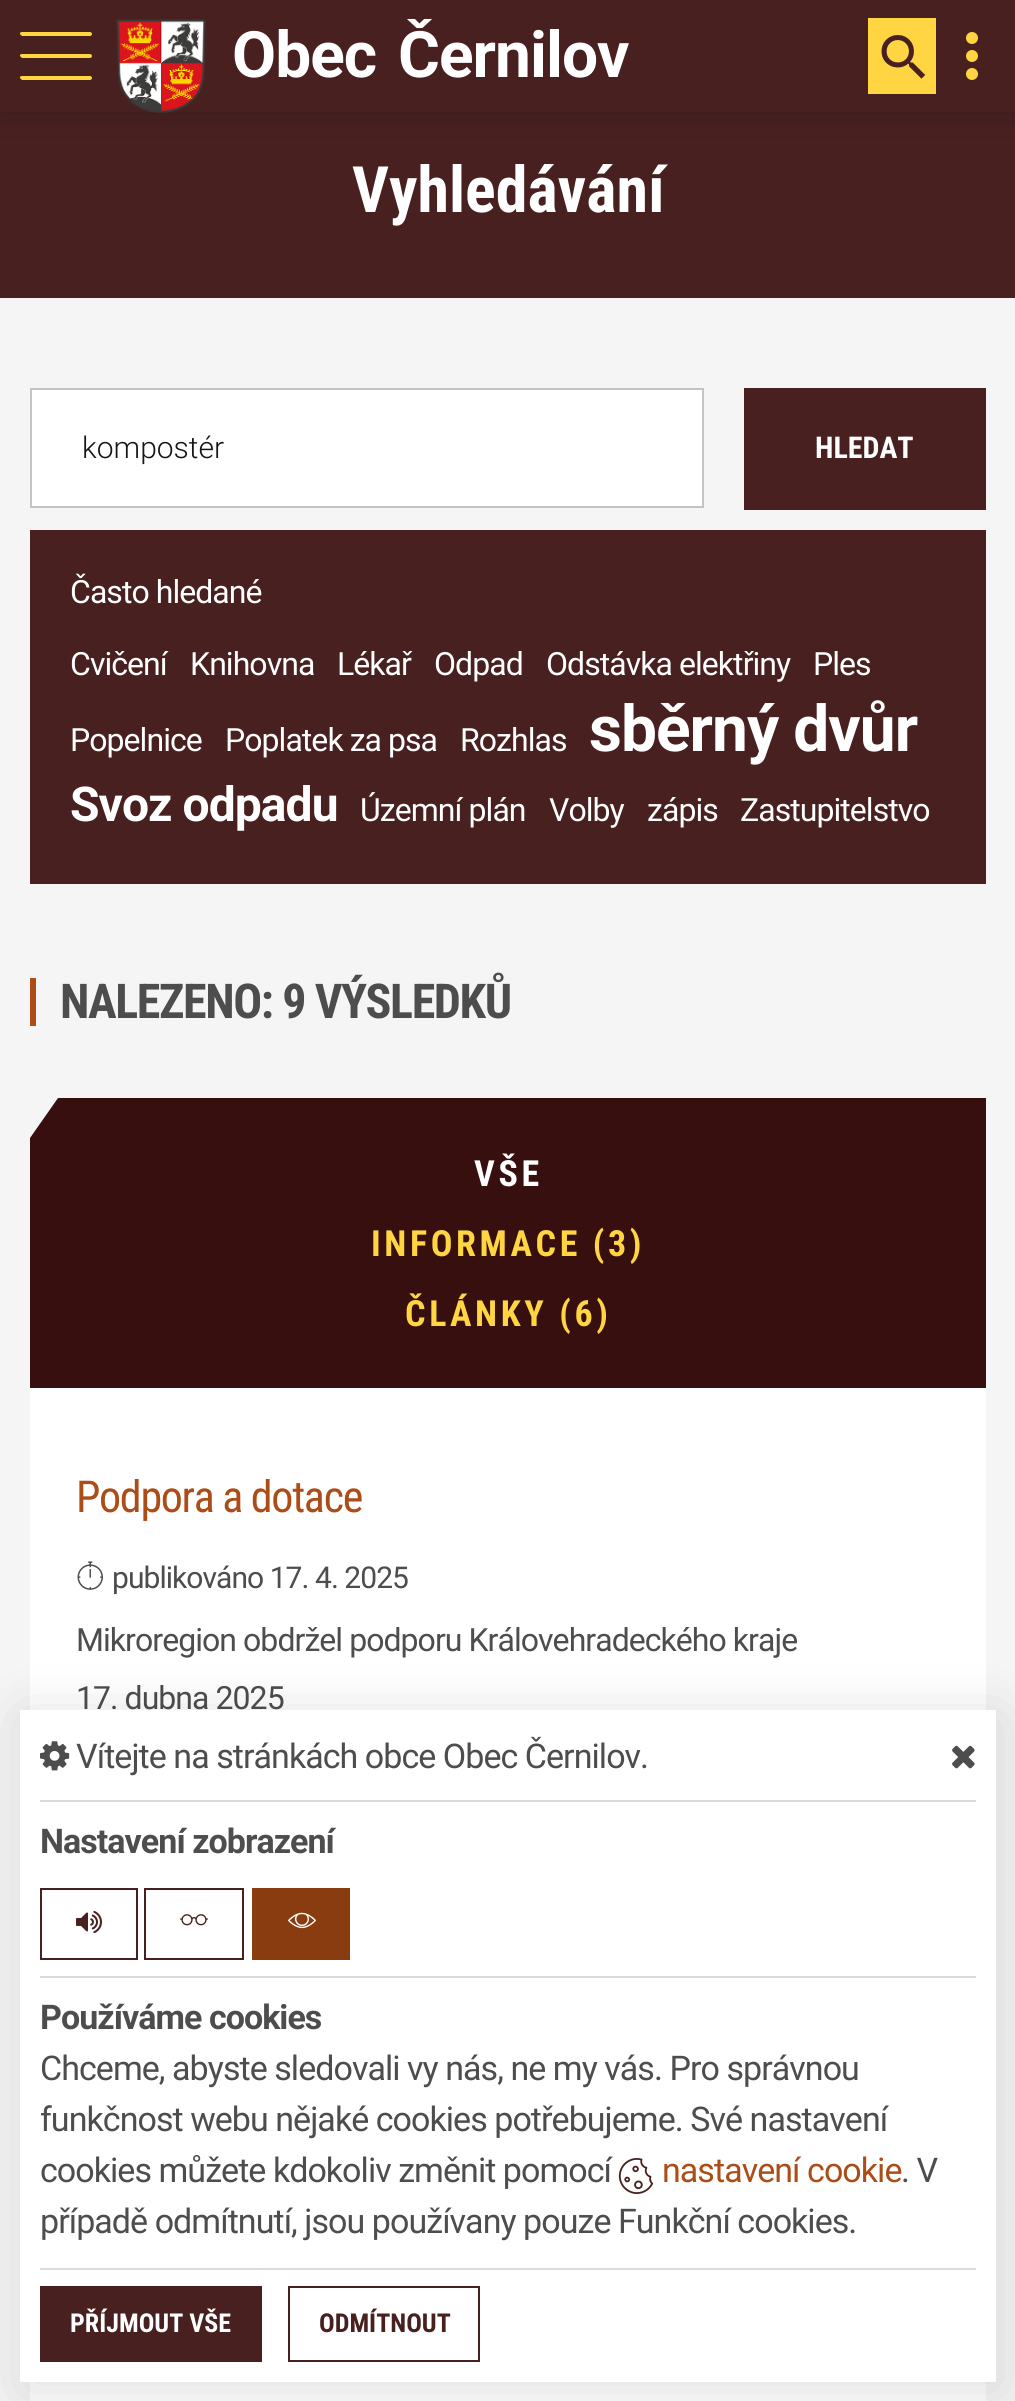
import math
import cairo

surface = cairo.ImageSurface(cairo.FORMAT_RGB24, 1015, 2401)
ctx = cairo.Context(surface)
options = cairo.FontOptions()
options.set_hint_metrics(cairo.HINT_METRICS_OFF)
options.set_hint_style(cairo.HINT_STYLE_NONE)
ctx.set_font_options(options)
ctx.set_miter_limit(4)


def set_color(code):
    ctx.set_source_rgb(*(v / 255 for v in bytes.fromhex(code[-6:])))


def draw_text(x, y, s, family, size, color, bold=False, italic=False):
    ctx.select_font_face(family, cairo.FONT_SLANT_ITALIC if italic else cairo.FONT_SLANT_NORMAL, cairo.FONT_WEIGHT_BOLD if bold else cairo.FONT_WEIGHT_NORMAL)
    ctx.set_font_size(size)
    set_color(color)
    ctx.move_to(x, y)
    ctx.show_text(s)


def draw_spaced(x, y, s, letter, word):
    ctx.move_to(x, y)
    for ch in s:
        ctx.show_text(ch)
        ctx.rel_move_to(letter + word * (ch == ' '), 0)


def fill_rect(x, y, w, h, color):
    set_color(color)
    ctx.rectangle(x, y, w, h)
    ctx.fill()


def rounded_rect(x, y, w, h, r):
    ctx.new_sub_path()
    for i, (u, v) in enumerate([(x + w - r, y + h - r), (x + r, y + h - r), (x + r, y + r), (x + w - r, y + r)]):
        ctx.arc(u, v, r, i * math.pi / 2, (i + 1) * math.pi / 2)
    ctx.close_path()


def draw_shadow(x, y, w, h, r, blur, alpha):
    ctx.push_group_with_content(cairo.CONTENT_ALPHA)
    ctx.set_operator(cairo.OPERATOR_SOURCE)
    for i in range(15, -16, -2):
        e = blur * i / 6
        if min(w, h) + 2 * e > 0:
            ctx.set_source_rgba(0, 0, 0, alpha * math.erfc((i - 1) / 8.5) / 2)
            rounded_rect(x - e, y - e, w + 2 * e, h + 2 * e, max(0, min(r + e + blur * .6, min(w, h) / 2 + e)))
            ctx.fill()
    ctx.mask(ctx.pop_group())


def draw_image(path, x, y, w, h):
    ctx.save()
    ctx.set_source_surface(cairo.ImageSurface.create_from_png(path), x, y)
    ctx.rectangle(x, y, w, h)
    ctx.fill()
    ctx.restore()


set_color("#f5f5f5")
ctx.paint()
fill_rect(0, 112, 1015, 186, "#492020")
set_color("#151515")
draw_shadow(0, 0, 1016, 112, 0, 15, 0.35)
fill_rect(0, 0, 1015, 112, "#492020")
set_color("#ffd541")
ctx.new_path()
ctx.move_to(90, 58)
ctx.line_to(22, 58)
ctx.line_to(21, 57)
ctx.curve_to(19, 56, 20, 54, 22, 54)
ctx.line_to(90, 54)
ctx.curve_to(91, 54, 92, 55, 92, 56)
ctx.curve_to(92, 57, 91, 58, 90, 58)
ctx.close_path()
ctx.fill()
ctx.new_path()
ctx.move_to(90, 36)
ctx.line_to(22, 36)
ctx.line_to(21, 35)
ctx.curve_to(19, 34, 20, 32, 22, 32)
ctx.line_to(90, 32)
ctx.curve_to(91, 32, 92, 33, 92, 34)
ctx.curve_to(92, 35, 91, 36, 90, 36)
ctx.close_path()
ctx.fill()
ctx.new_path()
ctx.move_to(90, 80)
ctx.line_to(22, 80)
ctx.line_to(21, 79)
ctx.curve_to(19, 78, 20, 76, 22, 76)
ctx.line_to(90, 76)
ctx.curve_to(91, 76, 92, 77, 92, 78)
ctx.curve_to(92, 79, 91, 80, 90, 80)
ctx.close_path()
ctx.fill()
draw_image("assets/img1.png", 116, 19, 90, 94)
ctx.select_font_face("Roboto", cairo.FONT_SLANT_NORMAL, cairo.FONT_WEIGHT_BOLD)
ctx.set_font_size(64)
set_color("#ffffff")
draw_spaced(232, 77, "Obec", -0.95, 0)
draw_spaced(398, 77, "Černilov", -0.95, 0)
set_color("#ffd541")
ctx.new_path()
ctx.arc(972, 56, 6, 0, 2 * math.pi)
ctx.fill()
ctx.arc(972, 38, 6, 0, 2 * math.pi)
ctx.fill()
ctx.arc(972, 74, 6, 0, 2 * math.pi)
ctx.fill()
fill_rect(868, 18, 68, 76, "#ffd541")
draw_image("assets/img2.png", 881, 35, 45, 44)
draw_text(352, 212, "Vyhledávání", "Roboto Condensed", 64, "#ffffff", bold=True)
ctx.rectangle(31, 389, 672, 118)
ctx.fill_preserve()
set_color("#c4c4c4")
ctx.stroke()
draw_text(82, 458, "kompostér", "Roboto Light", 30, "#151515")
fill_rect(744, 388, 242, 122, "#492020")
draw_text(815, 458, "HLEDAT", "Roboto Condensed", 30, "#ffffff", bold=True)
fill_rect(30, 530, 956, 354, "#492020")
ctx.select_font_face("Roboto")
ctx.set_font_size(32)
set_color("#ffffff")
draw_spaced(70, 603, "Často hledané", -0.95, 0)
draw_spaced(70, 675, "Cvičení", -0.95, 0)
draw_spaced(190, 675, "Knihovna", -0.95, 0)
draw_spaced(337, 675, "Lékař", -0.95, 0)
draw_spaced(434, 675, "Odpad", -0.95, 0)
draw_spaced(546, 675, "Odstávka elektřiny", -0.95, 0)
draw_spaced(813, 675, "Ples", -0.95, 0)
draw_spaced(70, 751, "Popelnice", -0.95, 0)
draw_spaced(225, 751, "Poplatek za psa", -0.95, 0)
draw_spaced(460, 751, "Rozhlas", -0.95, 0)
ctx.select_font_face("Roboto", cairo.FONT_SLANT_NORMAL, cairo.FONT_WEIGHT_BOLD)
ctx.set_font_size(64)
draw_spaced(589, 751, "sběrný dvůr", -0.95, 0)
ctx.set_font_size(48)
draw_spaced(70, 821, "Svoz odpadu", -0.95, 0)
ctx.select_font_face("Roboto")
ctx.set_font_size(32)
draw_spaced(360, 821, "Územní plán", -0.95, 0)
draw_spaced(549, 821, "Volby", -0.95, 0)
draw_spaced(647, 821, "zápis", -0.95, 0)
draw_spaced(740, 821, "Zastupitelstvo", -0.95, 0)
fill_rect(30, 978, 6, 48, "#ac4c16")
ctx.select_font_face("Roboto Condensed", cairo.FONT_SLANT_NORMAL, cairo.FONT_WEIGHT_BOLD)
ctx.set_font_size(48)
set_color("#4d4d4d")
draw_spaced(60, 1018, "NALEZENO: 9 VÝSLEDKŮ", -1.4, 0)
fill_rect(30, 1138, 956, 250, "#380f0f")
ctx.save()
ctx.rectangle(30, 1098, 956, 290)
ctx.clip()
ctx.new_path()
ctx.move_to(58, 1098)
ctx.line_to(1014, 1098)
ctx.line_to(958, 1178)
ctx.line_to(2, 1178)
ctx.close_path()
ctx.fill()
ctx.restore()
ctx.set_font_size(36)
set_color("#ffffff")
draw_spaced(474, 1186, "VŠE", 3.6, 0)
set_color("#ffd541")
draw_spaced(371, 1256, "INFORMACE (3)", 3.6, 0)
draw_spaced(405, 1326, "ČLÁNKY (6)", 3.6, 0)
fill_rect(30, 1388, 956, 1013, "#ffffff")
ctx.select_font_face("Roboto Condensed")
ctx.set_font_size(44)
set_color("#ac4c16")
draw_spaced(76, 1512, "Podpora a dotace", -1.3, 0)
draw_image("assets/img3.png", 77, 1561, 26, 29)
ctx.select_font_face("Roboto")
ctx.set_font_size(30)
set_color("#4d4d4d")
draw_spaced(112, 1588, "publikováno 17. 4. 2025", -0.95, 0)
ctx.set_font_size(32)
draw_spaced(76, 1651, "Mikroregion obdržel podporu Královehradeckého kraje", -0.95, 0)
draw_spaced(76, 1709, "17. dubna 2025", -0.95, 0)
set_color("#000000")
draw_shadow(24, 1718, 976, 672, 0, 29, 0.14)
fill_rect(20, 1710, 976, 672, "#ffffff")
draw_image("assets/img4.png", 40, 1741, 30, 30)
ctx.set_font_size(34)
set_color("#4d4d4d")
draw_spaced(76, 1768, "Vítejte na stránkách obce Obec Černilov.", -0.95, 0)
draw_image("assets/img5.png", 952, 1745, 23, 24)
fill_rect(40, 1800, 936, 2, "#dbdbdb")
ctx.select_font_face("Roboto", cairo.FONT_SLANT_NORMAL, cairo.FONT_WEIGHT_BOLD)
set_color("#4d4d4d")
draw_spaced(40, 1853, "Nastavení zobrazení", -0.95, 0)
ctx.rectangle(41, 1889, 96, 70)
set_color("#492020")
ctx.stroke()
draw_image("assets/img6.png", 76, 1910, 26, 24)
ctx.rectangle(145, 1889, 98, 70)
ctx.stroke()
draw_image("assets/img7.png", 180, 1914, 28, 12)
fill_rect(252, 1888, 98, 72, "#893c10")
draw_image("assets/img8.png", 288, 1912, 28, 17)
fill_rect(40, 1976, 936, 2, "#dbdbdb")
set_color("#4d4d4d")
draw_spaced(40, 2029, "Používáme cookies", -0.95, 0)
ctx.select_font_face("Roboto")
draw_spaced(40, 2080, "Chceme, abyste sledovali vy nás, ne my vás. Pro správnou", -0.95, 0)
draw_spaced(40, 2131, "funkčnost webu nějaké cookies potřebujeme. Své nastavení", -0.95, 0)
draw_spaced(40, 2182, "cookies můžete kdokoliv změnit pomocí", -0.95, 0)
draw_image("assets/img9.png", 618, 2158, 36, 36)
set_color("#ac4c16")
draw_spaced(662, 2182, "nastavení cookie", -0.95, 0)
set_color("#4d4d4d")
draw_spaced(901, 2182, ". V", -0.95, 0)
draw_spaced(40, 2233, "případě odmítnutí, jsou používany pouze Funkční cookies.", -0.95, 0)
fill_rect(40, 2268, 936, 2, "#dbdbdb")
fill_rect(40, 2286, 222, 76, "#492020")
draw_text(70, 2332, "PŘÍJMOUT VŠE", "Roboto Condensed", 26, "#ffffff", bold=True)
ctx.rectangle(289, 2287, 190, 74)
set_color("#492020")
ctx.stroke()
draw_text(319, 2332, "ODMÍTNOUT", "Roboto Condensed", 26, "#492020", bold=True)
surface.write_to_png("output.png")
